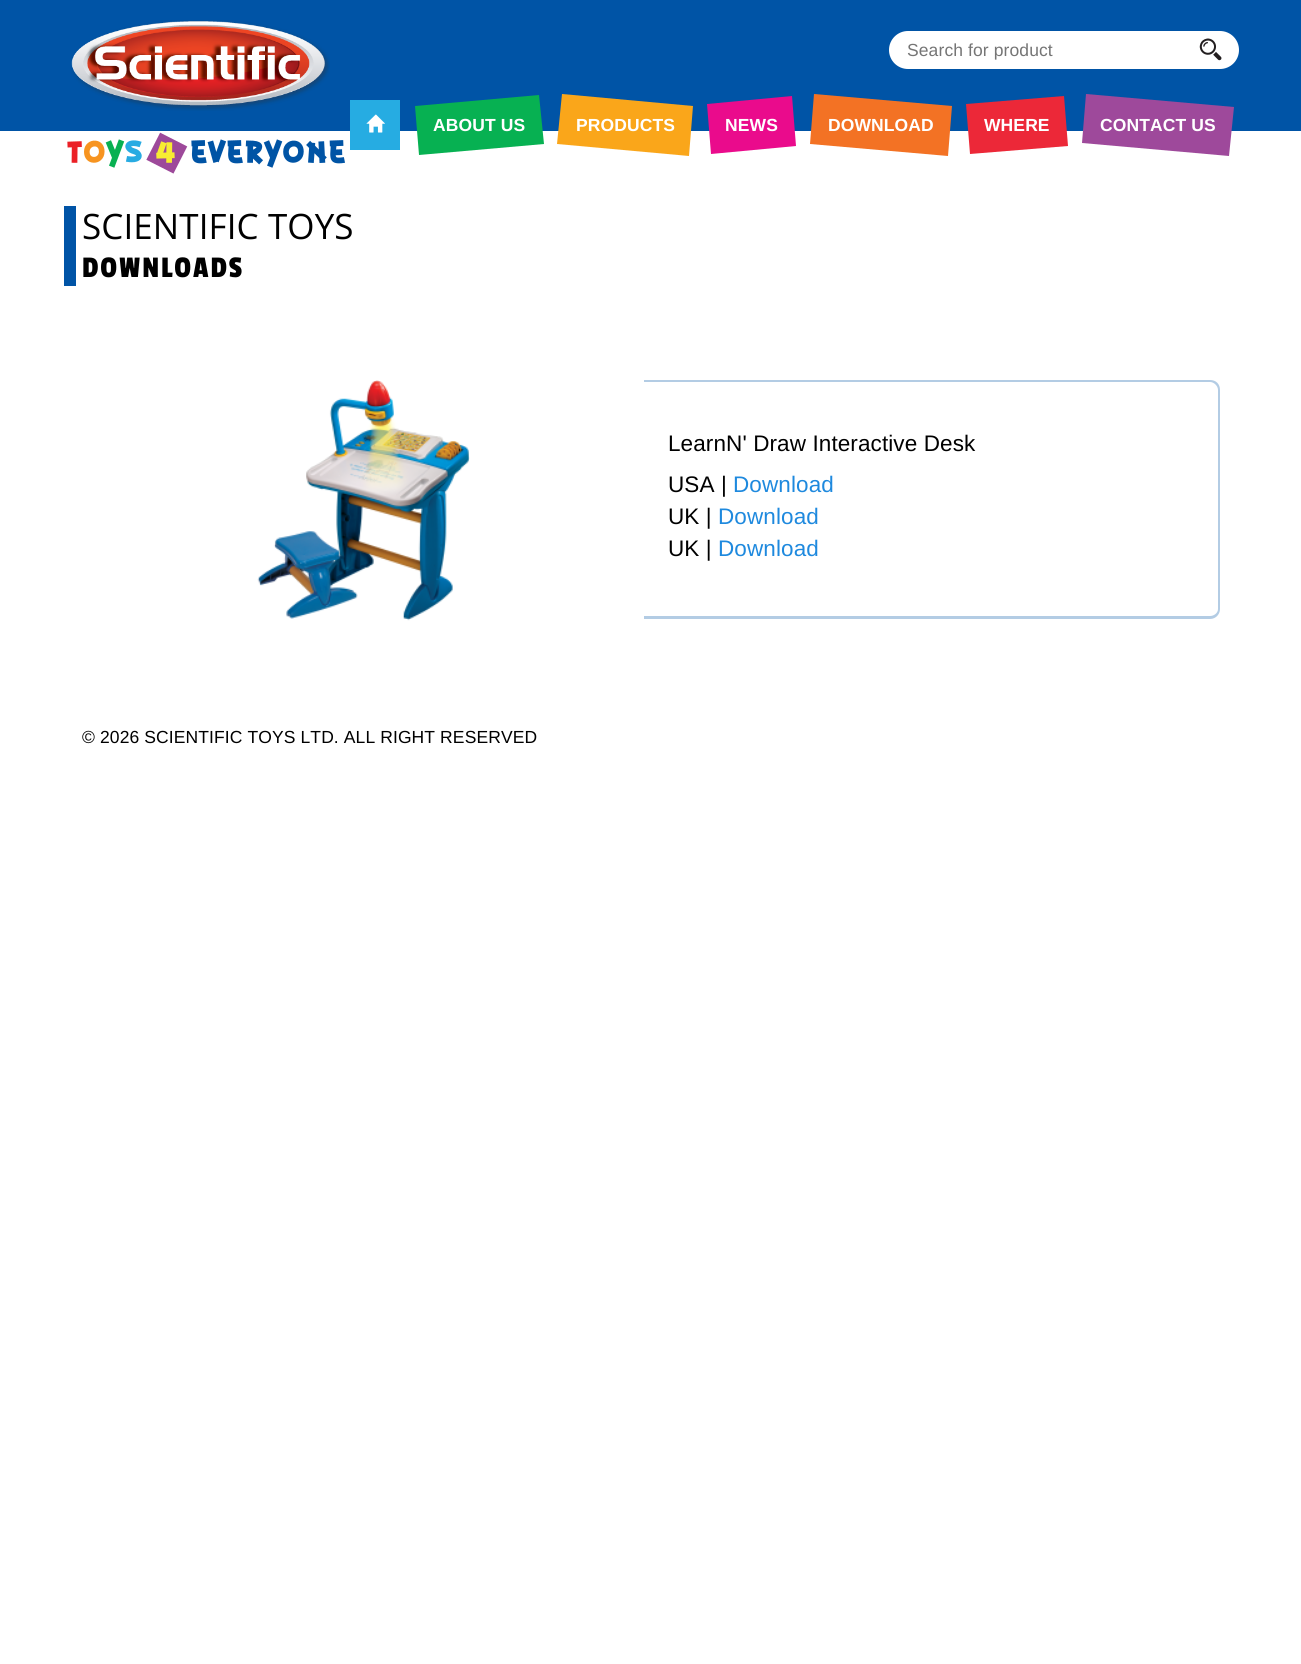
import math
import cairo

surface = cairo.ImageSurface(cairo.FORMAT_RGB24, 1301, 1664)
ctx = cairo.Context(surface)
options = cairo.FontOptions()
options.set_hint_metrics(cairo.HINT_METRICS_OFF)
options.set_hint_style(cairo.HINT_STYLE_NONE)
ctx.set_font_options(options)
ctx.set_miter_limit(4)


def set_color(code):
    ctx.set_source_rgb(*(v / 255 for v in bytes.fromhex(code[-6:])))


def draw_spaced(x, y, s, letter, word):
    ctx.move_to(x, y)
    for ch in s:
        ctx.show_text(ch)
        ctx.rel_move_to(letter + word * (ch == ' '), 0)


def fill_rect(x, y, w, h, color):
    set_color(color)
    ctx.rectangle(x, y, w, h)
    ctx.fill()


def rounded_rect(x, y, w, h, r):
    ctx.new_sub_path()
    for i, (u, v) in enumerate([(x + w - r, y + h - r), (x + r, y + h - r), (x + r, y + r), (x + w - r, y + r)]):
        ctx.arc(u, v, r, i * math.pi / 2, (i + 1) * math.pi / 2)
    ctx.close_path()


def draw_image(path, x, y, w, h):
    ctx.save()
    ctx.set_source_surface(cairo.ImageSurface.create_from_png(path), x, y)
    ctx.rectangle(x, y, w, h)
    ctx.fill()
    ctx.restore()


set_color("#ffffff")
ctx.paint()
fill_rect(0, 0, 1301, 131, "#0054a6")
draw_image("assets/img1.png", 71, 20, 259, 91)
set_color("#ffffff")
rounded_rect(889, 31, 350, 38, 19)
ctx.fill()
ctx.select_font_face("Liberation Sans")
ctx.set_font_size(17.5)
set_color("#757575")
draw_spaced(907, 56, "Search for product", 0.1, 0)
draw_image("assets/img2.png", 1199, 38, 23, 23)
fill_rect(350, 100, 50, 50, "#26ace2")
draw_image("assets/img3.png", 366, 114, 19, 19)
set_color("#07b152")
ctx.new_path()
ctx.move_to(415, 106)
ctx.line_to(539, 95)
ctx.line_to(544, 144)
ctx.line_to(419, 155)
ctx.close_path()
ctx.fill()
ctx.select_font_face("Liberation Sans", cairo.FONT_SLANT_NORMAL, cairo.FONT_WEIGHT_BOLD)
set_color("#ffffff")
draw_spaced(433, 131, "ABOUT US", 0.1, 0)
set_color("#faa61a")
ctx.new_path()
ctx.move_to(562, 94)
ctx.line_to(693, 106)
ctx.line_to(689, 156)
ctx.line_to(557, 144)
ctx.close_path()
ctx.fill()
set_color("#ffffff")
draw_spaced(576, 131, "PRODUCTS", 0.1, 0)
set_color("#ea0b8c")
ctx.new_path()
ctx.move_to(707, 104)
ctx.line_to(792, 96)
ctx.line_to(796, 146)
ctx.line_to(711, 154)
ctx.close_path()
ctx.fill()
set_color("#ffffff")
draw_spaced(725, 131, "NEWS", 0.1, 0)
set_color("#f37224")
ctx.new_path()
ctx.move_to(814, 94)
ctx.line_to(952, 106)
ctx.line_to(948, 156)
ctx.line_to(810, 144)
ctx.close_path()
ctx.fill()
set_color("#ffffff")
draw_spaced(828, 131, "DOWNLOAD", 0.1, 0)
set_color("#ec2838")
ctx.new_path()
ctx.move_to(966, 104)
ctx.line_to(1064, 96)
ctx.line_to(1068, 146)
ctx.line_to(970, 154)
ctx.close_path()
ctx.fill()
set_color("#ffffff")
draw_spaced(984, 131, "WHERE", 0.1, 0)
set_color("#9e499b")
ctx.new_path()
ctx.move_to(1086, 94)
ctx.line_to(1234, 107)
ctx.line_to(1229, 156)
ctx.line_to(1082, 143)
ctx.close_path()
ctx.fill()
set_color("#ffffff")
draw_spaced(1100, 131, "CONTACT US", 0.1, 0)
draw_image("assets/img4.png", 67, 132, 278, 42)
fill_rect(64, 206, 12, 80, "#0054a6")
ctx.select_font_face("Open Sans")
ctx.set_font_size(35)
set_color("#000000")
draw_spaced(82, 239, "SCIENTIFIC TOYS", 0.1, 0)
ctx.select_font_face("Passion One")
ctx.set_font_size(31.25)
draw_spaced(82, 277, "DOWNLOADS", 1.9, 0)
draw_image("assets/img5.png", 257, 380, 213, 241)
set_color("#b3cce4")
ctx.set_fill_rule(cairo.FILL_RULE_EVEN_ODD)
ctx.new_path()
ctx.move_to(644, 380)
ctx.line_to(1210, 380)
ctx.curve_to(1216, 380, 1220, 384, 1220, 390)
ctx.line_to(1220, 609)
ctx.curve_to(1220, 614, 1216, 619, 1210, 619)
ctx.line_to(644, 619)
ctx.close_path()
ctx.move_to(644, 382)
ctx.line_to(1210, 382)
ctx.curve_to(1214, 382, 1218, 386, 1218, 390)
ctx.line_to(1218, 609)
ctx.curve_to(1218, 613, 1214, 616, 1210, 616)
ctx.line_to(644, 616)
ctx.close_path()
ctx.fill()
ctx.select_font_face("Liberation Sans")
ctx.set_font_size(22.5)
set_color("#000000")
draw_spaced(668, 451, "LearnN' Draw Interactive Desk", 0.1, 0)
draw_spaced(668, 492, "USA |", 0.1, 0)
set_color("#1e89de")
draw_spaced(733, 492, "Download", 0.1, 0)
set_color("#000000")
draw_spaced(668, 524, "UK |", 0.1, 0)
set_color("#1e89de")
draw_spaced(718, 524, "Download", 0.1, 0)
set_color("#000000")
draw_spaced(668, 556, "UK |", 0.1, 0)
set_color("#1e89de")
draw_spaced(718, 556, "Download", 0.1, 0)
ctx.set_font_size(17.5)
set_color("#000000")
draw_spaced(82, 743, "© 2026 SCIENTIFIC TOYS LTD. ALL RIGHT RESERVED", 0.1, 0)
surface.write_to_png("output.png")
